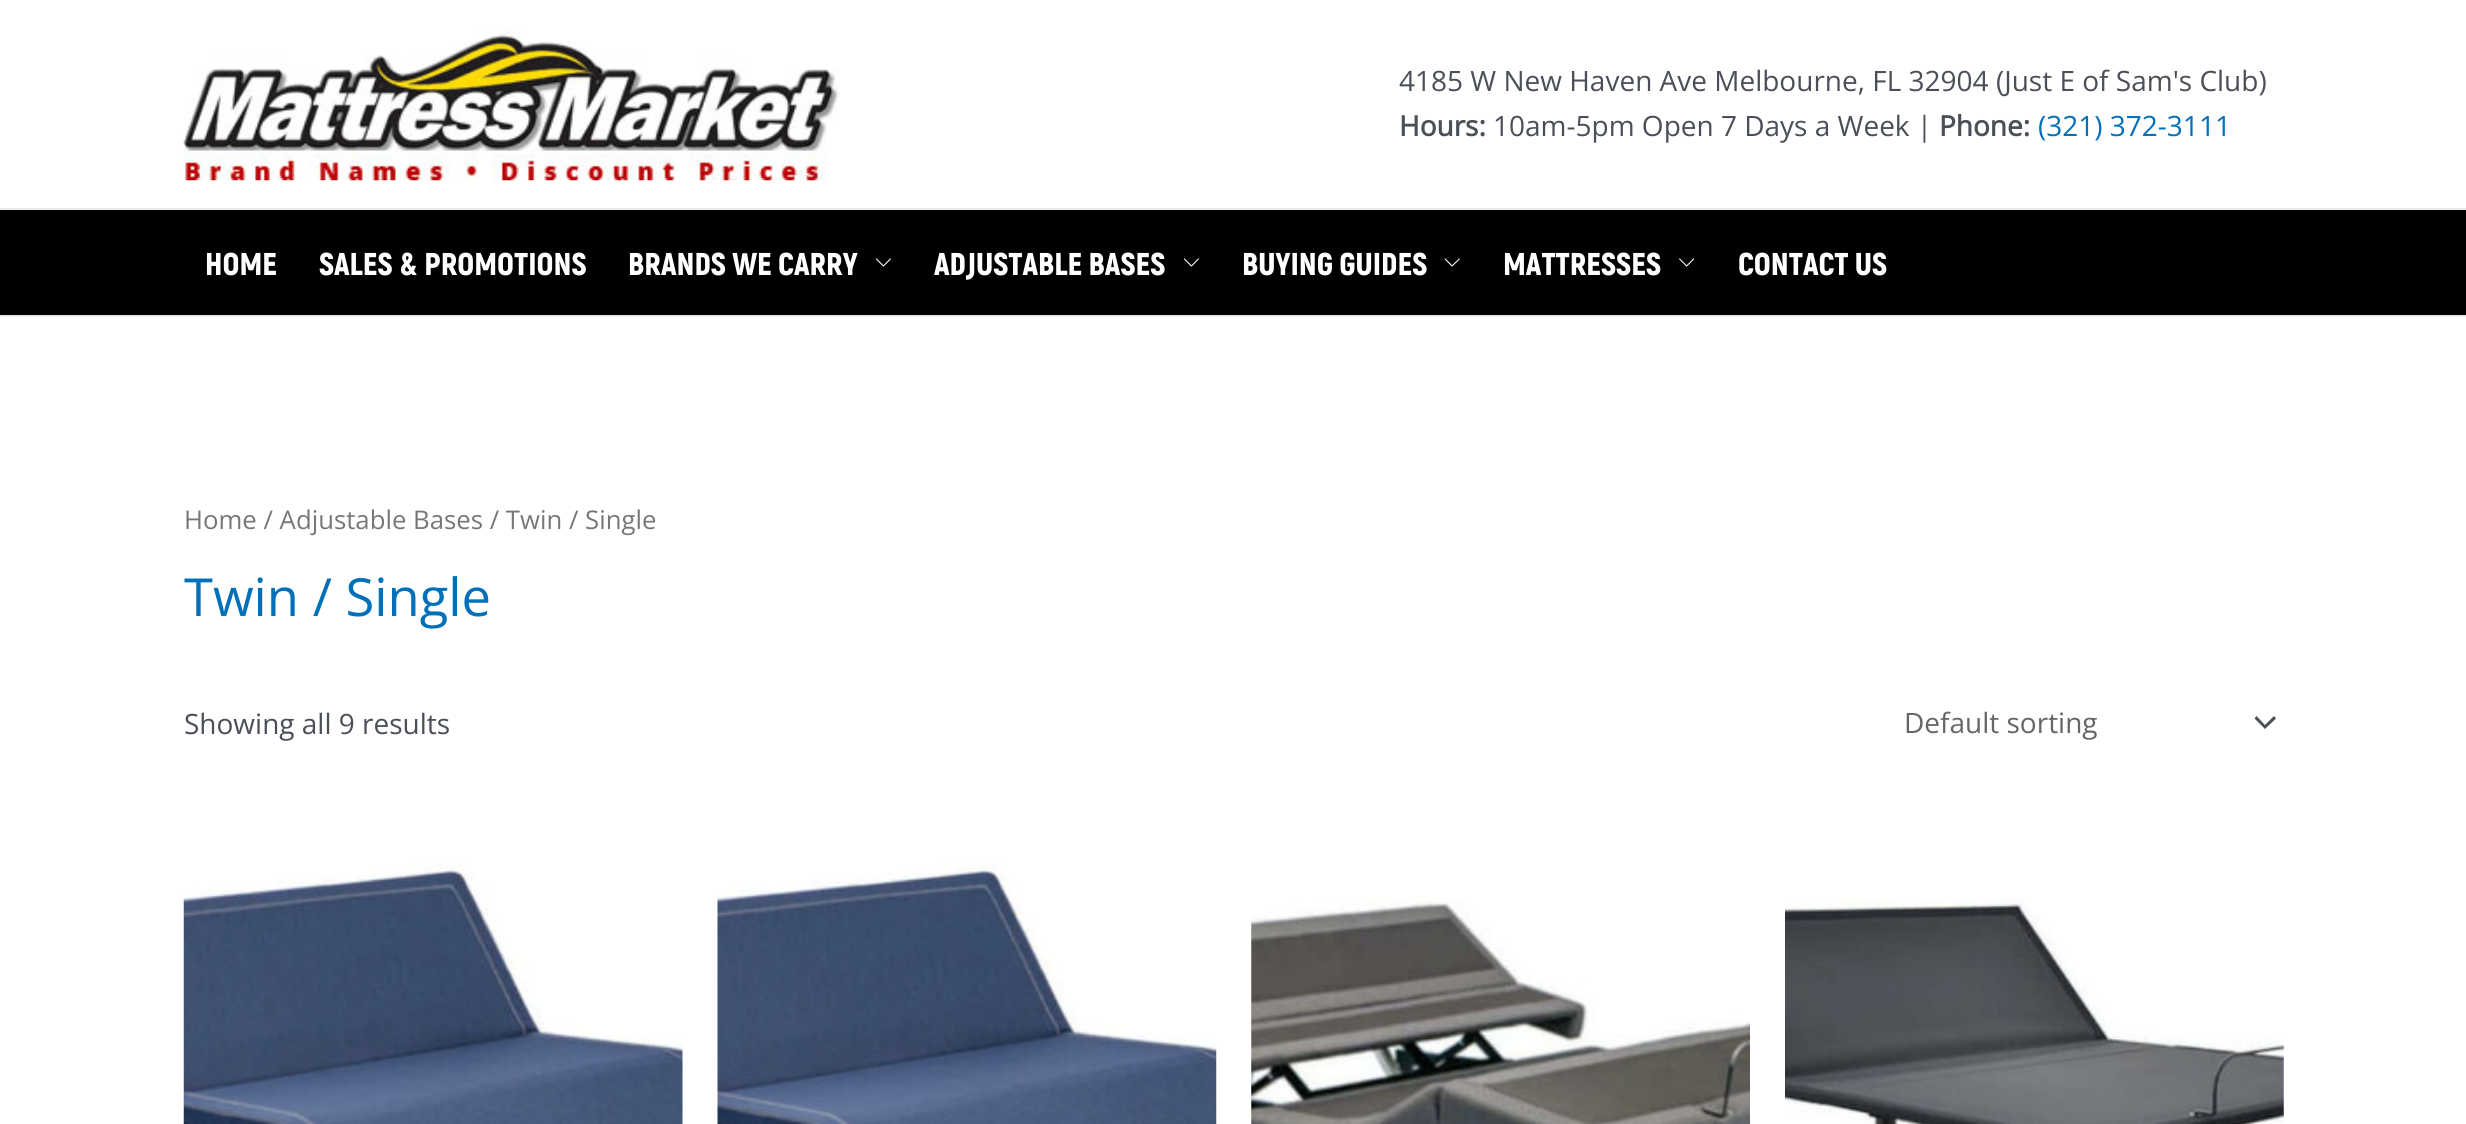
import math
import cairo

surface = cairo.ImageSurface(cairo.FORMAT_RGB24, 2466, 1124)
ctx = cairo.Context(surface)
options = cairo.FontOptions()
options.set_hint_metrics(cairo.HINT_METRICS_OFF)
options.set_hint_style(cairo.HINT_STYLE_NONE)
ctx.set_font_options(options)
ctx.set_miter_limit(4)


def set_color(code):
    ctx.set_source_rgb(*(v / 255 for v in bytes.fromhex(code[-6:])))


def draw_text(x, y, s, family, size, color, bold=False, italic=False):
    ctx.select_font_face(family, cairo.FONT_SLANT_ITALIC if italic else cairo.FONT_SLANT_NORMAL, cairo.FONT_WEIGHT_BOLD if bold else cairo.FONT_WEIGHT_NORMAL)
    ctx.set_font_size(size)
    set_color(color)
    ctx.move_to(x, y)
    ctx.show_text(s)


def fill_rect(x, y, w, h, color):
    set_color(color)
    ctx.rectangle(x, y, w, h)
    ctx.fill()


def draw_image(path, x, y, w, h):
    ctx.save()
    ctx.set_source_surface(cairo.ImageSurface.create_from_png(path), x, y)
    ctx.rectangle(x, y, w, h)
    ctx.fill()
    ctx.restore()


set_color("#ffffff")
ctx.paint()
fill_rect(0, 208, 2466, 2, "#eaeaea")
draw_image("assets/img1.png", 183, 30, 657, 151)
draw_text(1399, 91, "4185 W New Haven Ave Melbourne, FL 32904 (Just E of Sam's Club)", "Open Sans", 28, "#4b4f58")
draw_text(1399, 136, "Hours:", "Open Sans", 28, "#4b4f58", bold=True)
draw_text(1493, 136, "10am-5pm Open 7 Days a Week |", "Open Sans", 28, "#4b4f58")
draw_text(1939, 136, "Phone:", "Open Sans", 28, "#4b4f58", bold=True)
draw_text(2038, 136, "(321) 372-3111", "Open Sans", 28, "#0170b9")
fill_rect(0, 210, 2466, 105, "#000000")
fill_rect(0, 315, 2466, 2, "#eaeaea")
draw_text(205, 275, "HOME", "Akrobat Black", 31.5, "#ffffff")
draw_text(319, 275, "SALES & PROMOTIONS", "Akrobat Black", 31.5, "#ffffff")
draw_text(628, 275, "BRANDS WE CARRY", "Akrobat Black", 31.5, "#ffffff")
draw_image("assets/img2.png", 875, 258, 16, 9)
draw_text(934, 275, "ADJUSTABLE BASES", "Akrobat Black", 31.5, "#ffffff")
draw_image("assets/img2.png", 1183, 258, 16, 9)
draw_text(1242, 275, "BUYING GUIDES", "Akrobat Black", 31.5, "#ffffff")
draw_image("assets/img3.png", 1444, 258, 16, 9)
draw_text(1503, 275, "MATTRESSES", "Akrobat Black", 31.5, "#ffffff")
draw_image("assets/img4.png", 1679, 258, 16, 9)
draw_text(1738, 275, "CONTACT US", "Akrobat Black", 31.5, "#ffffff")
draw_text(184, 529, "Home / Adjustable Bases / Twin / Single", "Open Sans", 25.75, "#777777")
draw_text(184, 616, "Twin / Single", "Open Sans", 52.5, "#0170b9")
draw_text(184, 734, "Showing all 9 results", "Open Sans", 28, "#4b4f58")
ctx.new_path()
ctx.move_to(2254.5, 718.5)
ctx.line_to(2265, 729)
ctx.line_to(2276, 718.5)
ctx.line_to(2274, 716)
ctx.line_to(2265, 725)
ctx.line_to(2256.5, 716)
ctx.close_path()
ctx.fill()
draw_text(1904, 733, "Default sorting", "Open Sans", 28, "#666666")
draw_image("assets/img5.png", 183, 862, 500, 262)
draw_image("assets/img6.png", 717, 862, 500, 262)
draw_image("assets/img7.png", 1251, 896, 499, 228)
draw_image("assets/img8.png", 1785, 898, 499, 226)
surface.write_to_png("output.png")
